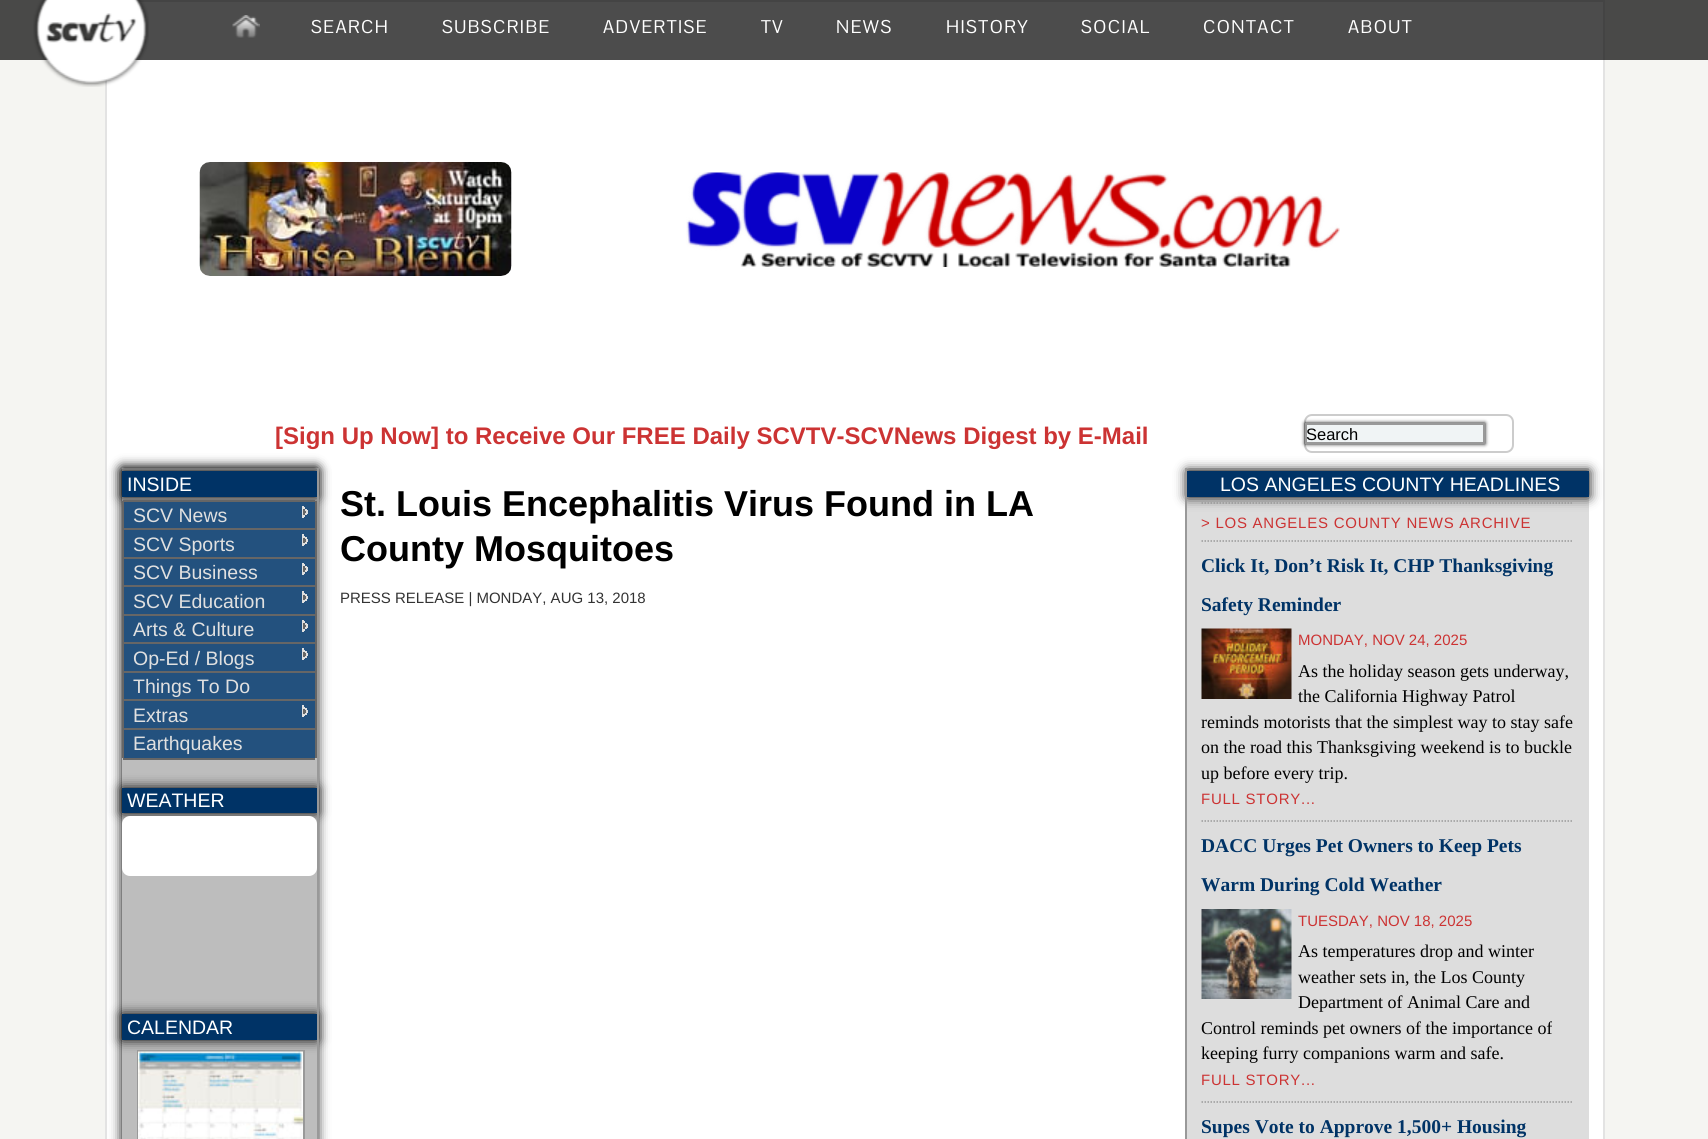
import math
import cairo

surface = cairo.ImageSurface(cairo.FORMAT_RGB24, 1708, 1139)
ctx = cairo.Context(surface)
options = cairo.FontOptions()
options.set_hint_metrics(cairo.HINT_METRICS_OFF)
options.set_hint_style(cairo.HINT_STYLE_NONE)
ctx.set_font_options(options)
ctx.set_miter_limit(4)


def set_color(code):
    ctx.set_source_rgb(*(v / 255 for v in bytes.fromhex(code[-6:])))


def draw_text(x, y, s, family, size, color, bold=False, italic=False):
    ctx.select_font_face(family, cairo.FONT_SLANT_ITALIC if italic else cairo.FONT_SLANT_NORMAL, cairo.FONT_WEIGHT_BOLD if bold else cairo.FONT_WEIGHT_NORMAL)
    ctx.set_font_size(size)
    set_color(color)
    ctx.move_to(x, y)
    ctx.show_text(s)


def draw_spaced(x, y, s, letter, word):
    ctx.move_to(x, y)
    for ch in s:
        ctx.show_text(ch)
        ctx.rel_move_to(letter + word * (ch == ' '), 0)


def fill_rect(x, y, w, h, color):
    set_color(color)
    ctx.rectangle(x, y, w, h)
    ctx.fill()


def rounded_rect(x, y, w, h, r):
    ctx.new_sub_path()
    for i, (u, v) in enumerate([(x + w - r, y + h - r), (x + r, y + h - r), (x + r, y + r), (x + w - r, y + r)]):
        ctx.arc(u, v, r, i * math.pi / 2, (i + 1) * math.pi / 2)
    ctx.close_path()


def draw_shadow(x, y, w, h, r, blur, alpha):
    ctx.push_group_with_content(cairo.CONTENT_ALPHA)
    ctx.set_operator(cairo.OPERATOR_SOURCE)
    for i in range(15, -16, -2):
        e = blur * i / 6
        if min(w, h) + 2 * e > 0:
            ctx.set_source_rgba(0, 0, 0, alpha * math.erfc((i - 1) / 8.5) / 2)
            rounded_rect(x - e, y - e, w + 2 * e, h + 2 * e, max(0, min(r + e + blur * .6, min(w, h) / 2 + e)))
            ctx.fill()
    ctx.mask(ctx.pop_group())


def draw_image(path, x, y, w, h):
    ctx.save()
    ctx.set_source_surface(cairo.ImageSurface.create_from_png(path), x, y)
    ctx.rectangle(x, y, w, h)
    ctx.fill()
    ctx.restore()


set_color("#f5f5f2")
ctx.paint()
set_color("#ffffff")
ctx.rectangle(106, 1, 1498, 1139)
ctx.fill_preserve()
set_color("#e3e3e3")
ctx.stroke()
ctx.set_source_rgba(0, 0, 0, 0.7)
ctx.rectangle(0, 0, 1708, 60)
ctx.fill()
draw_image("assets/img1.png", 33, 0, 116, 87)
draw_image("assets/img2.png", 232, 15, 28, 23)
ctx.select_font_face("Pontano Sans")
ctx.set_font_size(18)
set_color("#ffffff")
draw_spaced(311, 33, "SEARCH", 1.5, 0)
draw_spaced(442, 33, "SUBSCRIBE", 1.5, 0)
draw_spaced(603, 33, "ADVERTISE", 1.5, 0)
draw_spaced(761, 33, "TV", 1.5, 0)
draw_spaced(836, 33, "NEWS", 1.5, 0)
draw_spaced(946, 33, "HISTORY", 1.5, 0)
draw_spaced(1081, 33, "SOCIAL", 1.5, 0)
draw_spaced(1203, 33, "CONTACT", 1.5, 0)
draw_spaced(1348, 33, "ABOUT", 1.5, 0)
draw_image("assets/img3.png", 199, 162, 313, 114)
draw_image("assets/img4.png", 686, 172, 654, 95)
set_color("#000000")
draw_shadow(122, 468, 195, 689, 0, 6, 1)
draw_text(275, 444, "[Sign Up Now] to Receive Our FREE Daily SCVTV-SCVNews Digest by E-Mail", "Liberation Sans", 24, "#cc3333", bold=True)
rounded_rect(1305, 415, 208, 37, 7)
set_color("#cccccc")
ctx.stroke()
set_color("#000000")
draw_shadow(1305, 423, 180, 21, 0, 2, 1)
set_color("#f0f4f5")
ctx.rectangle(1306, 424, 178, 19)
ctx.fill_preserve()
set_color("#999999")
ctx.stroke()
draw_text(1306, 440, "Search", "Liberation Sans", 16.5, "#000000")
fill_rect(122, 468, 195, 671, "#bdbdbd")
set_color("#000000")
draw_shadow(122, 471, 195, 26, 0, 6, 1)
draw_shadow(122, 788, 195, 25, 0, 6, 1)
draw_shadow(122, 1014, 195, 26, 0, 6, 1)
fill_rect(317, 468, 2, 671, "#999999")
fill_rect(122, 471, 195, 26, "#003366")
draw_text(127, 491, "INSIDE", "Liberation Sans", 19.5, "#ffffff")
fill_rect(122, 501, 2, 257, "#666666")
fill_rect(123, 500, 192, 2, "#666666")
fill_rect(124, 502, 191, 26, "#23517e")
fill_rect(315, 501, 2, 257, "#666666")
draw_text(133, 522, "SCV News", "Liberation Sans", 19.5, "#e0e0e0")
fill_rect(302, 506, 2, 12, "#e0e0e0")
fill_rect(303, 509, 2, 6, "#666666")
fill_rect(303, 507, 2, 2, "#e0e0e0")
fill_rect(303, 515, 2, 2, "#e0e0e0")
fill_rect(305, 510, 1, 3, "#666666")
fill_rect(305, 509, 2, 2, "#e0e0e0")
fill_rect(305, 513, 2, 2, "#e0e0e0")
fill_rect(306, 510, 2, 4, "#e0e0e0")
fill_rect(123, 528, 192, 2, "#666666")
fill_rect(124, 530, 191, 27, "#23517e")
draw_text(133, 551, "SCV Sports", "Liberation Sans", 19.5, "#e0e0e0")
fill_rect(302, 534, 2, 12, "#e0e0e0")
fill_rect(303, 537, 2, 6, "#666666")
fill_rect(303, 536, 2, 2, "#e0e0e0")
fill_rect(303, 543, 2, 2, "#e0e0e0")
fill_rect(305, 539, 1, 3, "#666666")
fill_rect(305, 537, 2, 2, "#e0e0e0")
fill_rect(305, 542, 2, 2, "#e0e0e0")
fill_rect(306, 539, 2, 3, "#e0e0e0")
fill_rect(123, 557, 192, 2, "#666666")
fill_rect(124, 559, 191, 26, "#23517e")
draw_text(133, 579, "SCV Business", "Liberation Sans", 19.5, "#e0e0e0")
fill_rect(302, 563, 2, 12, "#e0e0e0")
fill_rect(303, 566, 2, 6, "#666666")
fill_rect(303, 564, 2, 2, "#e0e0e0")
fill_rect(303, 572, 2, 2, "#e0e0e0")
fill_rect(305, 567, 1, 3, "#666666")
fill_rect(305, 566, 2, 2, "#e0e0e0")
fill_rect(305, 570, 2, 2, "#e0e0e0")
fill_rect(306, 567, 2, 4, "#e0e0e0")
fill_rect(123, 585, 192, 2, "#666666")
fill_rect(124, 587, 191, 27, "#23517e")
draw_text(133, 608, "SCV Education", "Liberation Sans", 19.5, "#e0e0e0")
fill_rect(302, 591, 2, 12, "#e0e0e0")
fill_rect(303, 594, 2, 6, "#666666")
fill_rect(303, 593, 2, 2, "#e0e0e0")
fill_rect(303, 600, 2, 2, "#e0e0e0")
fill_rect(305, 596, 1, 3, "#666666")
fill_rect(305, 594, 2, 2, "#e0e0e0")
fill_rect(305, 599, 2, 2, "#e0e0e0")
fill_rect(306, 596, 2, 3, "#e0e0e0")
fill_rect(123, 614, 192, 2, "#666666")
fill_rect(124, 616, 191, 26, "#23517e")
draw_text(133, 636, "Arts & Culture", "Liberation Sans", 19.5, "#e0e0e0")
fill_rect(302, 620, 2, 12, "#e0e0e0")
fill_rect(303, 623, 2, 6, "#666666")
fill_rect(303, 621, 2, 2, "#e0e0e0")
fill_rect(303, 629, 2, 2, "#e0e0e0")
fill_rect(305, 624, 1, 3, "#666666")
fill_rect(305, 623, 2, 2, "#e0e0e0")
fill_rect(305, 627, 2, 2, "#e0e0e0")
fill_rect(306, 624, 2, 4, "#e0e0e0")
fill_rect(123, 642, 192, 2, "#666666")
fill_rect(124, 644, 191, 27, "#23517e")
draw_text(133, 665, "Op-Ed / Blogs", "Liberation Sans", 19.5, "#e0e0e0")
fill_rect(302, 648, 2, 12, "#e0e0e0")
fill_rect(303, 651, 2, 6, "#666666")
fill_rect(303, 650, 2, 2, "#e0e0e0")
fill_rect(303, 657, 2, 2, "#e0e0e0")
fill_rect(305, 653, 1, 3, "#666666")
fill_rect(305, 651, 2, 2, "#e0e0e0")
fill_rect(305, 656, 2, 2, "#e0e0e0")
fill_rect(306, 653, 2, 3, "#e0e0e0")
fill_rect(123, 671, 192, 2, "#666666")
fill_rect(124, 673, 191, 26, "#23517e")
draw_text(133, 693, "Things To Do", "Liberation Sans", 19.5, "#e0e0e0")
fill_rect(123, 699, 192, 2, "#666666")
fill_rect(124, 701, 191, 27, "#23517e")
draw_text(133, 722, "Extras", "Liberation Sans", 19.5, "#e0e0e0")
fill_rect(302, 705, 2, 12, "#e0e0e0")
fill_rect(303, 708, 2, 6, "#666666")
fill_rect(303, 707, 2, 2, "#e0e0e0")
fill_rect(303, 714, 2, 2, "#e0e0e0")
fill_rect(305, 710, 1, 3, "#666666")
fill_rect(305, 708, 2, 2, "#e0e0e0")
fill_rect(305, 713, 2, 2, "#e0e0e0")
fill_rect(306, 710, 2, 3, "#e0e0e0")
fill_rect(123, 728, 192, 2, "#666666")
fill_rect(124, 730, 191, 28, "#23517e")
draw_text(133, 750, "Earthquakes", "Liberation Sans", 19.5, "#e0e0e0")
fill_rect(123, 758, 192, 2, "#666666")
fill_rect(122, 788, 195, 25, "#003366")
draw_text(127, 807, "WEATHER", "Liberation Sans", 19.5, "#ffffff")
rounded_rect(122, 816, 195, 60, 8)
ctx.fill()
fill_rect(122, 1014, 195, 26, "#003366")
draw_text(127, 1034, "CALENDAR", "Liberation Sans", 19.5, "#ffffff")
ctx.rectangle(138, 1051, 166, 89)
set_color("#999999")
ctx.stroke()
draw_image("assets/img5.png", 138, 1051, 165, 88)
draw_text(340, 516, "St. Louis Encephalitis Virus Found in LA", "Liberation Sans", 36, "#000000", bold=True)
draw_text(340, 561, "County Mosquitoes", "Liberation Sans", 36, "#000000", bold=True)
draw_text(340, 603, "PRESS RELEASE | MONDAY, AUG 13, 2018", "Liberation Sans", 15, "#333333")
fill_rect(1187, 468, 402, 671, "#dddddd")
set_color("#000000")
draw_shadow(1187, 471, 402, 26, 0, 6, 1)
fill_rect(1185, 468, 2, 671, "#999999")
fill_rect(1187, 471, 402, 26, "#003366")
draw_text(1220, 491, "LOS ANGELES COUNTY HEADLINES", "Liberation Sans", 19.5, "#ffffff")
ctx.new_path()
ctx.move_to(1201.5, 503)
ctx.line_to(1573.5, 503)
set_color("#999999")
ctx.set_line_width(1.5)
ctx.set_dash([1.5, 1.5])
ctx.stroke()
ctx.new_path()
ctx.move_to(1201.5, 541)
ctx.line_to(1573.5, 541)
ctx.stroke()
ctx.set_font_size(15)
set_color("#cc3333")
draw_spaced(1201, 528, "> LOS ANGELES COUNTY NEWS ARCHIVE", 0.75, 0)
draw_text(1201, 572, "Click It, Don’t Risk It, CHP Thanksgiving", "Liberation Serif", 19.5, "#003366", bold=True)
draw_text(1201, 611, "Safety Reminder", "Liberation Serif", 19.5, "#003366", bold=True)
draw_image("assets/img6.png", 1201, 628, 91, 71)
draw_text(1298, 645, "MONDAY, NOV 24, 2025", "Liberation Sans", 15, "#cc3333")
ctx.new_path()
ctx.move_to(1201.5, 821)
ctx.line_to(1573.5, 821)
set_color("#999999")
ctx.stroke()
draw_text(1298, 677, "As the holiday season gets underway,", "Liberation Serif", 18, "#000000")
draw_text(1298, 702, "the California Highway Patrol", "Liberation Serif", 18, "#000000")
draw_text(1201, 728, "reminds motorists that the simplest way to stay safe", "Liberation Serif", 18, "#000000")
draw_text(1201, 753, "on the road this Thanksgiving weekend is to buckle", "Liberation Serif", 18, "#000000")
draw_text(1201, 779, "up before every trip.", "Liberation Serif", 18, "#000000")
ctx.select_font_face("Liberation Sans")
ctx.set_font_size(15)
set_color("#cc3333")
draw_spaced(1201, 804, "FULL STORY...", 0.75, 0)
draw_text(1201, 852, "DACC Urges Pet Owners to Keep Pets", "Liberation Serif", 19.5, "#003366", bold=True)
draw_text(1201, 891, "Warm During Cold Weather", "Liberation Serif", 19.5, "#003366", bold=True)
draw_image("assets/img7.png", 1201, 909, 91, 90)
draw_text(1298, 926, "TUESDAY, NOV 18, 2025", "Liberation Sans", 15, "#cc3333")
ctx.new_path()
ctx.move_to(1201.5, 1102)
ctx.line_to(1573.5, 1102)
set_color("#999999")
ctx.stroke()
draw_text(1298, 957, "As temperatures drop and winter", "Liberation Serif", 18, "#000000")
draw_text(1298, 983, "weather sets in, the Los County", "Liberation Serif", 18, "#000000")
draw_text(1298, 1008, "Department of Animal Care and", "Liberation Serif", 18, "#000000")
draw_text(1201, 1034, "Control reminds pet owners of the importance of", "Liberation Serif", 18, "#000000")
draw_text(1201, 1059, "keeping furry companions warm and safe.", "Liberation Serif", 18, "#000000")
ctx.select_font_face("Liberation Sans")
ctx.set_font_size(15)
set_color("#cc3333")
draw_spaced(1201, 1085, "FULL STORY...", 0.75, 0)
draw_text(1201, 1133, "Supes Vote to Approve 1,500+ Housing", "Liberation Serif", 19.5, "#003366", bold=True)
surface.write_to_png("output.png")
